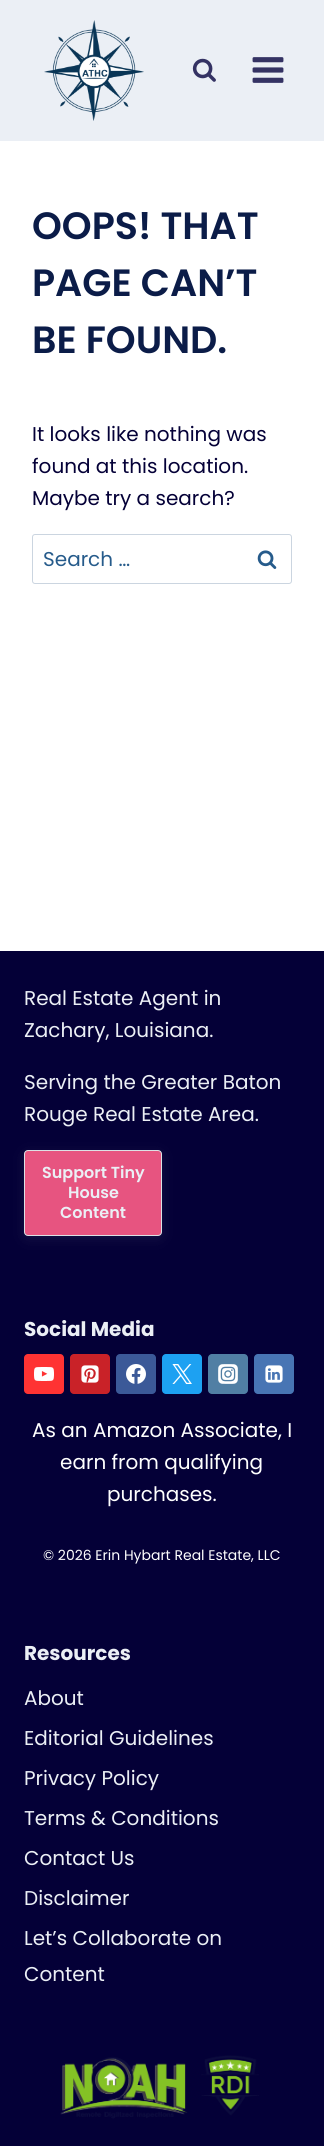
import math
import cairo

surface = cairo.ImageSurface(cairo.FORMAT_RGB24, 324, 2146)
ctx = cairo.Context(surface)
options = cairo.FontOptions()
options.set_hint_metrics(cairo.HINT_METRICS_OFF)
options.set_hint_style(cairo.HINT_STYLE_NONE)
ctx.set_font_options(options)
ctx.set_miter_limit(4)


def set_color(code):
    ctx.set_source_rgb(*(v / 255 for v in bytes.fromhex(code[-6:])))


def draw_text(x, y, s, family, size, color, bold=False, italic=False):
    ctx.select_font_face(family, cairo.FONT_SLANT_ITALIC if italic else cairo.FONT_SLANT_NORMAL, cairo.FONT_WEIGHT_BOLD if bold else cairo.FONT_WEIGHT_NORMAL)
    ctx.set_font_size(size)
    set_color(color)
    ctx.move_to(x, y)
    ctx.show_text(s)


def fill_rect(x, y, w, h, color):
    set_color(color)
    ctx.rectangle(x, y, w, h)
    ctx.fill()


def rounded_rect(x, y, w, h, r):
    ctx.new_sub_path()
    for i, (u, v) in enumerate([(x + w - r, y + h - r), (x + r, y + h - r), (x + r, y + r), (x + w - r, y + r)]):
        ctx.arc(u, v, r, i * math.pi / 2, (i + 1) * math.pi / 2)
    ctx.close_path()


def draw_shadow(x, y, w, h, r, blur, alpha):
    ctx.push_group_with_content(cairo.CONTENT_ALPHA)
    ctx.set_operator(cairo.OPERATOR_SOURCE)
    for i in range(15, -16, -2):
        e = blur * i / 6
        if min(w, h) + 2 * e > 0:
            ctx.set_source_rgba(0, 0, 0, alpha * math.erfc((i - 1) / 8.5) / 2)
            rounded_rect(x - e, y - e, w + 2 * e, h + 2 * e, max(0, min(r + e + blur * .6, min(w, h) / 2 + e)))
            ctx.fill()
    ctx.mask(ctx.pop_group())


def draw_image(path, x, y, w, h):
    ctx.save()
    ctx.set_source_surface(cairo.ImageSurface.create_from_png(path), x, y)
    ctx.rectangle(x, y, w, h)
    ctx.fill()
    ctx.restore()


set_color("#ffffff")
ctx.paint()
fill_rect(0, 0, 324, 141, "#ebeff5")
draw_image("assets/img1.png", 44, 20, 100, 101)
draw_image("assets/img2.png", 192, 58, 24, 24)
draw_image("assets/img3.png", 252, 57, 32, 26)
draw_text(32, 239, "OOPS! THAT", "Poppins SemiBold", 38, "#0b1c48")
draw_text(32, 296, "PAGE CAN’T", "Poppins SemiBold", 38, "#0b1c48")
draw_text(32, 353, "BE FOUND.", "Poppins SemiBold", 38, "#0b1c48")
draw_text(32, 441, "It looks like nothing was", "Poppins", 20, "#040037")
draw_text(32, 473, "found at this location.", "Poppins", 20, "#040037")
draw_text(32, 505, "Maybe try a search?", "Poppins", 20, "#040037")
rounded_rect(32.5, 534.5, 259, 49, 2.5)
set_color("#cbd5e0")
ctx.set_line_width(1)
ctx.stroke()
draw_text(43, 566, "Search …", "Poppins", 20, "#265b8b")
draw_image("assets/img4.png", 257, 550, 20, 19)
fill_rect(0, 951, 324, 1195, "#040037")
draw_text(24, 1005, "Real Estate Agent in", "Poppins", 20, "#ebeff5")
draw_text(24, 1037, "Zachary, Louisiana.", "Poppins", 20, "#ebeff5")
draw_text(24, 1089, "Serving the Greater Baton", "Poppins", 20, "#ebeff5")
draw_text(24, 1121, "Rouge Real Estate Area.", "Poppins", 20, "#ebeff5")
set_color("#b0b8be")
draw_shadow(24, 1153, 138, 86, 4, 6, 0.1)
set_color("#e75480")
rounded_rect(24.5, 1150.5, 137, 85, 3.5)
ctx.fill_preserve()
set_color("#dce1e5")
ctx.stroke()
draw_text(42, 1178, "Support Tiny", "Poppins SemiBold", 16, "#ebeff5")
draw_text(68, 1198, "House", "Poppins SemiBold", 16, "#ebeff5")
draw_text(60, 1218, "Content", "Poppins SemiBold", 16, "#ebeff5")
draw_text(24, 1336, "Social Media", "Poppins", 20, "#ebeff5", bold=True)
set_color("#ff3333")
rounded_rect(24, 1354, 40, 40, 4)
ctx.fill()
draw_image("assets/img5.png", 34, 1367, 20, 14)
set_color("#c92228")
rounded_rect(70, 1354, 40, 40, 4)
ctx.fill()
draw_image("assets/img6.png", 81, 1365, 18, 18)
set_color("#3b5998")
rounded_rect(116, 1354, 40, 40, 4)
ctx.fill()
draw_image("assets/img7.png", 126, 1364, 20, 20)
set_color("#1da1f2")
rounded_rect(162, 1354, 40, 40, 4)
ctx.fill()
draw_image("assets/img8.png", 172, 1364, 20, 20)
set_color("#517fa4")
rounded_rect(208, 1354, 40, 40, 4)
ctx.fill()
draw_image("assets/img9.png", 218, 1364, 20, 20)
set_color("#4875b4")
rounded_rect(254, 1354, 40, 40, 4)
ctx.fill()
draw_image("assets/img10.png", 265, 1365, 18, 18)
draw_text(32, 1437, "As an Amazon Associate, I", "Poppins", 20, "#ffffff")
draw_text(60, 1469, "earn from qualifying", "Poppins", 20, "#ffffff")
draw_text(107, 1501, "purchases.", "Poppins", 20, "#ffffff")
draw_text(43, 1560, "© 2026 Erin Hybart Real Estate, LLC", "Poppins", 14, "#ffffff")
draw_text(24, 1660, "Resources", "Poppins", 20, "#ebeff5", bold=True)
draw_text(24, 1705, "About", "Poppins", 20, "#ebeff5")
draw_text(24, 1745, "Editorial Guidelines", "Poppins", 20, "#ebeff5")
draw_text(24, 1785, "Privacy Policy", "Poppins", 20, "#ebeff5")
draw_text(24, 1825, "Terms & Conditions", "Poppins", 20, "#ebeff5")
draw_text(24, 1865, "Contact Us", "Poppins", 20, "#ebeff5")
draw_text(24, 1905, "Disclaimer", "Poppins", 20, "#ebeff5")
draw_text(24, 1945, "Let’s Collaborate on", "Poppins", 20, "#ebeff5")
draw_text(24, 1981, "Content", "Poppins", 20, "#ebeff5")
draw_image("assets/img11.png", 60, 2055, 199, 64)
surface.write_to_png("output.png")
